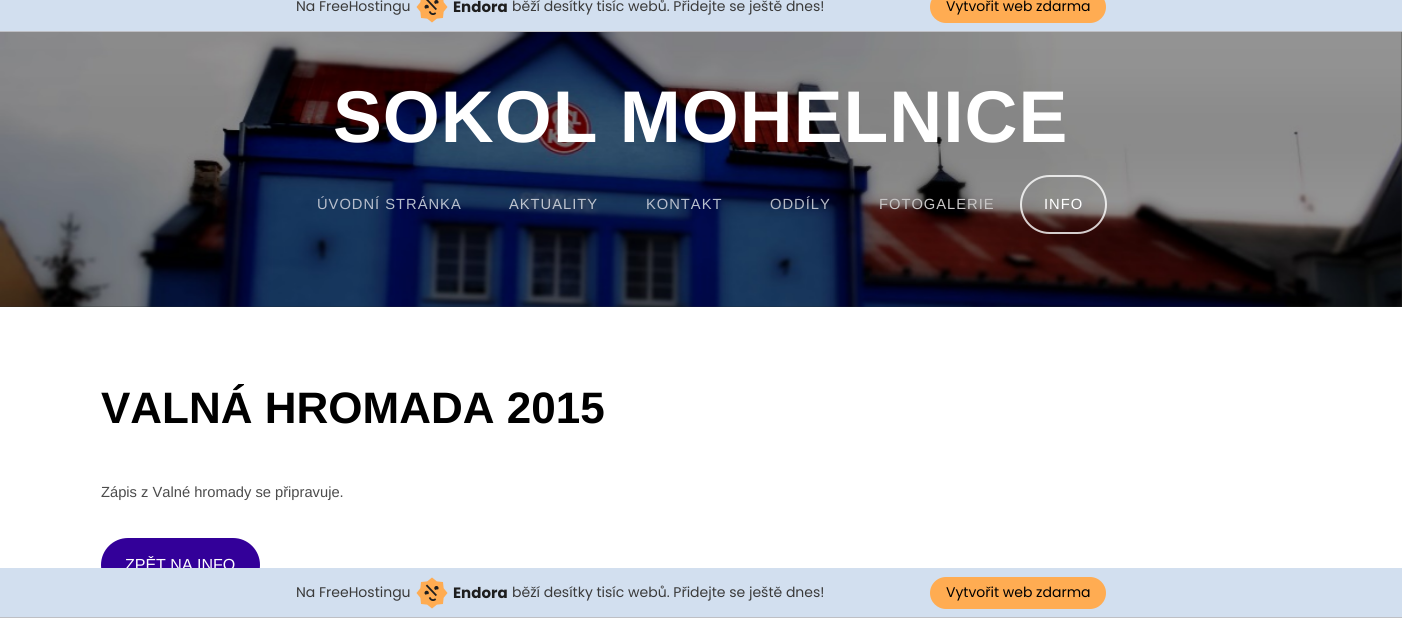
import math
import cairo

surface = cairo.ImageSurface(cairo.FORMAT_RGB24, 1402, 618)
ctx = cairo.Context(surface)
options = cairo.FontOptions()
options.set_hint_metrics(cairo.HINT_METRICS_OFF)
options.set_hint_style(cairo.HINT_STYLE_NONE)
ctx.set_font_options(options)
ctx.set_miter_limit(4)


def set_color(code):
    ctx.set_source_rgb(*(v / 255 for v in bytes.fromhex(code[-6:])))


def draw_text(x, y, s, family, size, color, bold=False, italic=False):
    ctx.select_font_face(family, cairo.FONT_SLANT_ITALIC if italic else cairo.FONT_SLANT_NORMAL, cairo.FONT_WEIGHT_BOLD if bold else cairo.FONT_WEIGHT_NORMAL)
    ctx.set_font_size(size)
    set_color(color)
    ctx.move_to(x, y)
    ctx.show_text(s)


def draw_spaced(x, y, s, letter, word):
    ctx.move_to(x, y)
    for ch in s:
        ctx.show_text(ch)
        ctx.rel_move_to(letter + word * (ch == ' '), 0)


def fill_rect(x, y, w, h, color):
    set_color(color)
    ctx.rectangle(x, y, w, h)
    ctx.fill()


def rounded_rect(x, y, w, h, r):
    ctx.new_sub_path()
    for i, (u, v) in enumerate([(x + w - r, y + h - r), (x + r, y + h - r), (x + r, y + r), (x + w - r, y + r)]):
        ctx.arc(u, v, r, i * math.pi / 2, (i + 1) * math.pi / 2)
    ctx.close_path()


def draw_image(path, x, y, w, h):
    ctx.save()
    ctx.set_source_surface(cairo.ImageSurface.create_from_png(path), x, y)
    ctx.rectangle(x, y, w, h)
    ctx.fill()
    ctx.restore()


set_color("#d2dfef")
ctx.paint()
fill_rect(0, 31, 1402, 1, "#bebfc4")
draw_text(296, 11, "Na FreeHostingu", "Poppins", 14, "#3a3a3a")
draw_image("assets/img1.png", 416, 0, 32, 23)
draw_text(453, 12, "Endora", "Poppins", 15, "#1e1e1e", bold=True)
draw_text(512, 11, "běží desítky tisíc webů. Přidejte se ještě dnes!", "Poppins", 14, "#3a3a3a")
set_color("#ffac52")
rounded_rect(930, -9, 176, 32, 16)
ctx.fill()
draw_text(946, 11, "Vytvořit web zdarma", "Poppins", 14, "#000000")
fill_rect(0, 32, 1402, 275, "#2a2f27")
draw_image("assets/img2.png", 0, 32, 1402, 275)
ctx.select_font_face("Arimo", cairo.FONT_SLANT_NORMAL, cairo.FONT_WEIGHT_BOLD)
ctx.set_font_size(73.25)
set_color("#ffffff")
draw_spaced(333, 142, "SOKOL MOHELNICE", 1, 0)
ctx.select_font_face("Arimo")
ctx.set_font_size(14.7)
set_color("#b7becc")
draw_spaced(317, 209, "ÚVODNÍ STRÁNKA", 1, 0)
set_color("#bdc3ce")
draw_spaced(509, 209, "AKTUALITY", 1, 0)
set_color("#b7becc")
draw_spaced(646, 209, "KONTAKT", 1, 0)
set_color("#b5bac5")
draw_spaced(770, 209, "ODDÍLY", 1, 0)
set_color("#c8c6c6")
draw_spaced(879, 209, "FOTOGALERIE", 1, 0)
rounded_rect(1021, 176, 85, 57, 28.5)
ctx.set_source_rgba(1, 1, 1, 0.8)
ctx.stroke()
set_color("#ffffff")
draw_spaced(1044, 209, "INFO", 1, 0)
fill_rect(0, 307, 1402, 261, "#ffffff")
draw_text(101, 423, "VALNÁ HROMADA 2015", "Arimo", 44, "#000000", bold=True)
draw_text(101, 497, "Zápis z Valné hromady se připravuje.", "Arimo", 14.7, "#4c4c4c")
set_color("#330099")
rounded_rect(101, 538, 159, 54, 27)
ctx.fill()
draw_text(125, 570, "ZPĚT NA INFO", "Arimo", 16, "#ffffff")
fill_rect(101, 568, 159, 24, "#d2dfef")
fill_rect(0, 617, 1402, 1, "#bebfc4")
draw_text(296, 597, "Na FreeHostingu", "Poppins", 14, "#3a3a3a")
draw_image("assets/img3.png", 416, 577, 32, 32)
draw_text(453, 598, "Endora", "Poppins", 15, "#1e1e1e", bold=True)
draw_text(512, 597, "běží desítky tisíc webů. Přidejte se ještě dnes!", "Poppins", 14, "#3a3a3a")
set_color("#ffac52")
rounded_rect(930, 577, 176, 32, 16)
ctx.fill()
draw_text(946, 597, "Vytvořit web zdarma", "Poppins", 14, "#000000")
surface.write_to_png("output.png")
